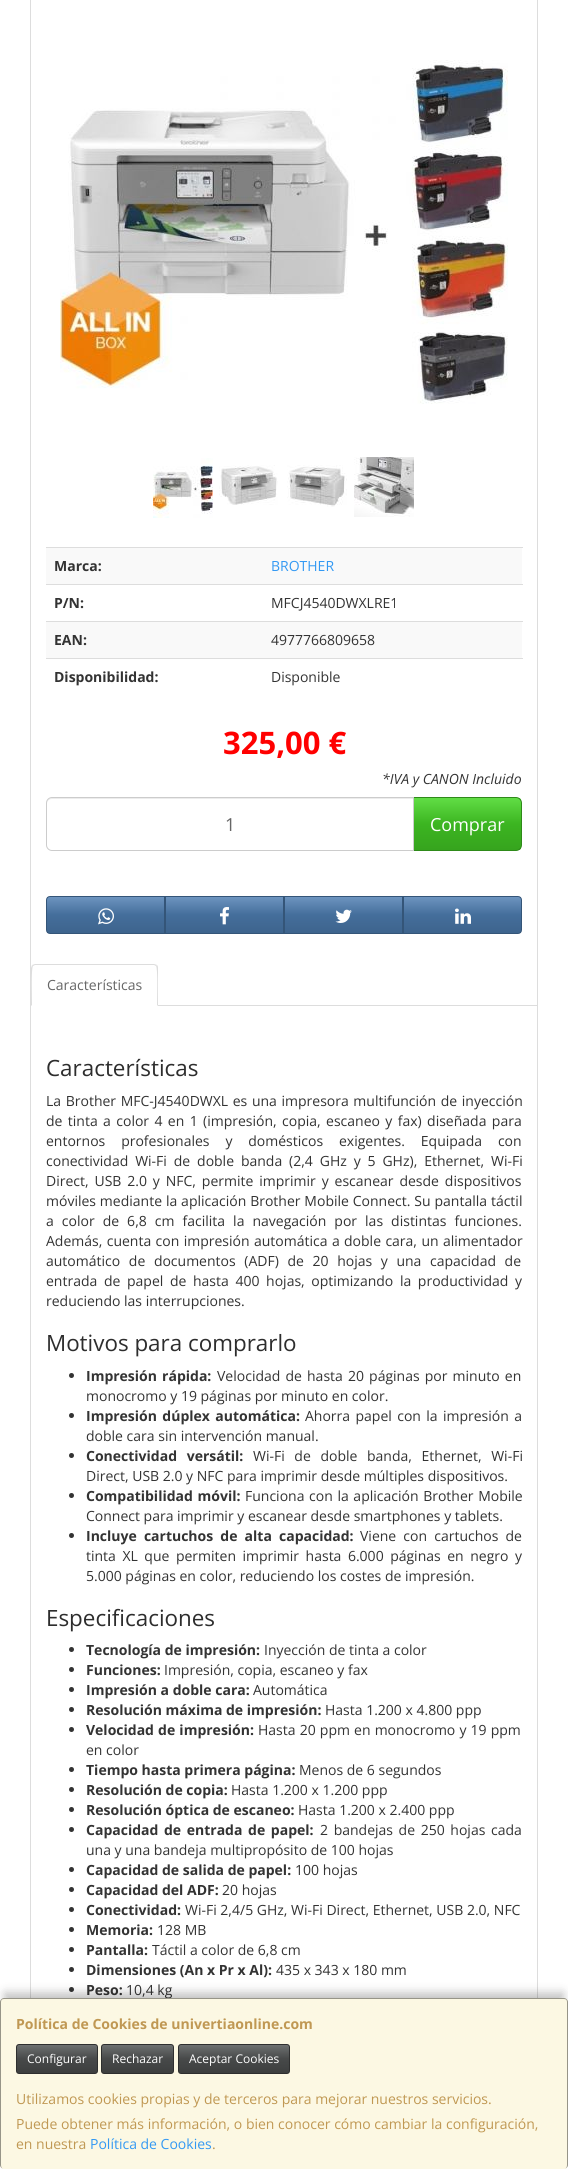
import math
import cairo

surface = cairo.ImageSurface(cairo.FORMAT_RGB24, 568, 2169)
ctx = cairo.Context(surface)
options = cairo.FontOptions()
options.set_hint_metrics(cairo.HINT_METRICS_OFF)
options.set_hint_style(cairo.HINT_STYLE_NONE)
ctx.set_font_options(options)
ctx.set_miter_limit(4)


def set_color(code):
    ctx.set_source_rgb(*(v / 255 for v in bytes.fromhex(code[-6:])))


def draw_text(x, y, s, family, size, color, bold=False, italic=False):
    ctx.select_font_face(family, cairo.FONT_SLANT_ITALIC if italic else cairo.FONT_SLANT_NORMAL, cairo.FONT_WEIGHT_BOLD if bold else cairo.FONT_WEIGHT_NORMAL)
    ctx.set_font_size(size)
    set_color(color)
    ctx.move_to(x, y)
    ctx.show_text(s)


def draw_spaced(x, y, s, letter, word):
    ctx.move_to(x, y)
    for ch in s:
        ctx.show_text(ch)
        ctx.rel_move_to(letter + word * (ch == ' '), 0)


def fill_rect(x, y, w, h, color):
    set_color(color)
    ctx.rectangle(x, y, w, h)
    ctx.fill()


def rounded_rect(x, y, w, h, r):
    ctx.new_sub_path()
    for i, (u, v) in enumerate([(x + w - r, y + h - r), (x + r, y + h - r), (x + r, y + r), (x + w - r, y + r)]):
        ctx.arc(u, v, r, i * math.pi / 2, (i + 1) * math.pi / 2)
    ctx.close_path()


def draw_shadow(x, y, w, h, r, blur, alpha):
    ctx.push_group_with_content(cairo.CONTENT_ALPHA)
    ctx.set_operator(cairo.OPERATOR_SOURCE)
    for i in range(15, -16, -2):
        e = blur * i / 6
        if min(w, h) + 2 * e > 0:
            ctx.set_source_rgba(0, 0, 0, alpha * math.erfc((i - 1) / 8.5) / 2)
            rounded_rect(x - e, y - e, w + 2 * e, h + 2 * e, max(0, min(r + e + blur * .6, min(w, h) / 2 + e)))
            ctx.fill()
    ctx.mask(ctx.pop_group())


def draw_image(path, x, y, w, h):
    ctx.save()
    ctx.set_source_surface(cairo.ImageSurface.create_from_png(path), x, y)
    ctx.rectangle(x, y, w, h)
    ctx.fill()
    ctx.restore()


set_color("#ffffff")
ctx.paint()
ctx.rectangle(30.5, -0.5, 507, 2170)
set_color("#dddddd")
ctx.set_line_width(1)
ctx.stroke()
draw_image("assets/img1.png", 60, 60, 448, 344)
draw_image("assets/img2.png", 153, 458, 60, 60)
draw_image("assets/img3.png", 219, 465, 59, 40)
draw_image("assets/img4.png", 287, 465, 60, 42)
draw_image("assets/img5.png", 354, 457, 60, 60)
fill_rect(46, 548, 476, 36, "#f9f9f9")
draw_text(54, 571, "Marca:", "Open Sans", 14, "#333333", bold=True)
fill_rect(46, 547, 477, 1, "#dddddd")
draw_text(271, 571, "BROTHER", "Open Sans", 14, "#3399f3")
draw_text(54, 608, "P/N:", "Open Sans", 14, "#333333", bold=True)
fill_rect(46, 584, 477, 1, "#dddddd")
draw_text(271, 608, "MFCJ4540DWXLRE1", "Open Sans", 14, "#333333")
fill_rect(46, 622, 476, 36, "#f9f9f9")
draw_text(54, 645, "EAN:", "Open Sans", 14, "#333333", bold=True)
fill_rect(46, 621, 477, 1, "#dddddd")
draw_text(271, 645, "4977766809658", "Open Sans", 14, "#333333")
draw_text(54, 682, "Disponibilidad:", "Open Sans", 14, "#333333", bold=True)
fill_rect(46, 658, 477, 1, "#dddddd")
draw_text(271, 682, "Disponible", "Open Sans", 14, "#333333")
draw_text(223, 754, "325,00 €", "Open Sans", 31, "#ff0000", bold=True)
draw_text(382, 784, "*IVA y CANON Incluido", "Open Sans", 14, "#333333", italic=True)
ctx.save()
ctx.new_path()
ctx.move_to(413, 797)
ctx.line_to(516, 797)
ctx.curve_to(519.5, 797, 522, 799.5, 522, 803)
ctx.line_to(522, 845)
ctx.curve_to(522, 848.5, 519.5, 851, 516, 851)
ctx.line_to(413, 851)
ctx.close_path()
ctx.clip()
gradient = cairo.LinearGradient(468, 798, 468, 850)
gradient.add_color_stop_rgba(0, 0.38, 0.867, 0.271, 1)
gradient.add_color_stop_rgba(0.5, 0.235, 0.71, 0.129, 1)
gradient.add_color_stop_rgba(1, 0.212, 0.643, 0.118, 1)
ctx.set_source(gradient)
ctx.rectangle(414, 798, 107, 52)
ctx.fill()
ctx.restore()
ctx.new_path()
ctx.move_to(413.5, 797.5)
ctx.line_to(516, 797.5)
ctx.curve_to(519, 797.5, 521.5, 800, 521.5, 803)
ctx.line_to(521.5, 845)
ctx.curve_to(521.5, 848, 519, 850.5, 516, 850.5)
ctx.line_to(413.5, 850.5)
ctx.close_path()
set_color("#2e8a19")
ctx.stroke()
set_color("#ffffff")
ctx.new_path()
ctx.move_to(52, 797)
ctx.line_to(414, 797)
ctx.line_to(414, 851)
ctx.line_to(52, 851)
ctx.curve_to(48.5, 851, 46, 848.5, 46, 845)
ctx.line_to(46, 803)
ctx.curve_to(46, 799.5, 48.5, 797, 52, 797)
ctx.close_path()
ctx.fill()
set_color("#ececec")
ctx.new_path()
ctx.move_to(52, 799)
ctx.line_to(413, 799)
ctx.line_to(413, 798)
ctx.line_to(52, 798)
ctx.curve_to(49, 798, 47, 800, 47, 803)
ctx.line_to(47, 804)
ctx.curve_to(47, 801, 49, 799, 52, 799)
ctx.close_path()
ctx.fill()
ctx.new_path()
ctx.move_to(52, 797.5)
ctx.line_to(413.5, 797.5)
ctx.line_to(413.5, 850.5)
ctx.line_to(52, 850.5)
ctx.curve_to(49, 850.5, 46.5, 848, 46.5, 845)
ctx.line_to(46.5, 803)
ctx.curve_to(46.5, 800, 49, 797.5, 52, 797.5)
ctx.close_path()
set_color("#cccccc")
ctx.stroke()
draw_text(225, 831, "1", "Open Sans", 18, "#666666")
draw_text(430, 831, "Comprar", "Open Sans", 18, "#ffffff")
gradient = cairo.LinearGradient(106, 897, 106, 933)
gradient.add_color_stop_rgba(0, 0.427, 0.58, 0.749, 1)
gradient.add_color_stop_rgba(0.5, 0.267, 0.431, 0.608, 1)
gradient.add_color_stop_rgba(1, 0.243, 0.392, 0.553, 1)
ctx.set_source(gradient)
ctx.rectangle(47, 897, 117, 36)
ctx.fill()
ctx.new_path()
ctx.move_to(50, 896.5)
ctx.line_to(164.5, 896.5)
ctx.line_to(164.5, 933.5)
ctx.line_to(50, 933.5)
ctx.curve_to(48, 933.5, 46.5, 932, 46.5, 930)
ctx.line_to(46.5, 900)
ctx.curve_to(46.5, 898, 48, 896.5, 50, 896.5)
ctx.close_path()
set_color("#345578")
ctx.stroke()
draw_image("assets/img6.png", 98, 908, 16, 17)
gradient = cairo.LinearGradient(225, 897, 225, 933)
gradient.add_color_stop_rgba(0, 0.427, 0.58, 0.749, 1)
gradient.add_color_stop_rgba(0.5, 0.267, 0.431, 0.608, 1)
gradient.add_color_stop_rgba(1, 0.243, 0.392, 0.553, 1)
ctx.set_source(gradient)
ctx.rectangle(166, 897, 117, 36)
ctx.fill()
ctx.rectangle(165.5, 896.5, 118, 37)
set_color("#345578")
ctx.stroke()
draw_image("assets/img7.png", 220, 907, 9, 18)
gradient = cairo.LinearGradient(344, 897, 344, 933)
gradient.add_color_stop_rgba(0, 0.427, 0.58, 0.749, 1)
gradient.add_color_stop_rgba(0.5, 0.267, 0.431, 0.608, 1)
gradient.add_color_stop_rgba(1, 0.243, 0.392, 0.553, 1)
ctx.set_source(gradient)
ctx.rectangle(285, 897, 117, 36)
ctx.fill()
ctx.rectangle(284.5, 896.5, 118, 37)
set_color("#345578")
ctx.stroke()
draw_image("assets/img8.png", 335, 909, 17, 14)
gradient = cairo.LinearGradient(463, 897, 463, 933)
gradient.add_color_stop_rgba(0, 0.427, 0.58, 0.749, 1)
gradient.add_color_stop_rgba(0.5, 0.267, 0.431, 0.608, 1)
gradient.add_color_stop_rgba(1, 0.243, 0.392, 0.553, 1)
ctx.set_source(gradient)
ctx.rectangle(404, 897, 117, 36)
ctx.fill()
ctx.new_path()
ctx.move_to(403.5, 896.5)
ctx.line_to(518, 896.5)
ctx.curve_to(520, 896.5, 521.5, 898, 521.5, 900)
ctx.line_to(521.5, 930)
ctx.curve_to(521.5, 932, 520, 933.5, 518, 933.5)
ctx.line_to(403.5, 933.5)
ctx.close_path()
set_color("#345578")
ctx.stroke()
draw_image("assets/img9.png", 455, 908, 16, 16)
fill_rect(158, 1005, 379, 1, "#dddddd")
ctx.new_path()
ctx.move_to(35, 964)
ctx.line_to(32, 965)
ctx.line_to(33, 966)
ctx.line_to(35, 965)
ctx.line_to(154, 965)
ctx.line_to(156, 966)
ctx.line_to(157, 965)
ctx.line_to(154, 964)
ctx.close_path()
ctx.fill()
ctx.new_path()
ctx.move_to(158, 1006)
ctx.line_to(158, 968)
ctx.curve_to(158, 967, 158, 966, 157, 965)
ctx.line_to(156, 966)
ctx.curve_to(158, 968, 157, 1000, 157, 1005)
ctx.close_path()
ctx.fill()
ctx.new_path()
ctx.move_to(31, 1006)
ctx.line_to(32, 1005)
ctx.curve_to(32, 1000, 31, 968, 33, 966)
ctx.line_to(32, 965)
ctx.line_to(31, 968)
ctx.close_path()
ctx.fill()
draw_text(47, 990, "Características", "Open Sans", 14, "#666666")
draw_text(46, 1076, "Características", "Open Sans", 22.4, "#2d2d2d")
ctx.set_font_size(14)
set_color("#333333")
draw_spaced(46, 1106, "La Brother MFC-J4540DWXL es una impresora multifunción de inyección", 0, 1)
draw_spaced(46, 1126, "de tinta a color 4 en 1 (impresión, copia, escaneo y fax) diseñada para", 0, 1.75)
draw_spaced(46, 1146, "entornos profesionales y domésticos exigentes. Equipada con", 0, 12.25)
draw_spaced(46, 1166, "conectividad Wi-Fi de doble banda (2,4 GHz y 5 GHz), Ethernet, Wi-Fi", 0, 3.25)
draw_spaced(46, 1186, "Direct, USB 2.0 y NFC, permite imprimir y escanear desde dispositivos", 0, 2.25)
draw_spaced(46, 1206, "móviles mediante la aplicación Brother Mobile Connect. Su pantalla táctil", 0, 0.25)
draw_spaced(46, 1226, "a color de 6,8 cm facilita la navegación por las distintas funciones.", 0, 4.4)
draw_spaced(46, 1246, "Además, cuenta con impresión automática a doble cara, un alimentador", 0, 0.75)
draw_spaced(46, 1266, "automático de documentos (ADF) de 20 hojas y una capacidad de", 0, 5)
draw_spaced(46, 1286, "entrada de papel de hasta 400 hojas, optimizando la productividad y", 0, 3)
draw_text(46, 1306, "reduciendo las interrupciones.", "Open Sans", 14, "#333333")
draw_text(46, 1351, "Motivos para comprarlo", "Open Sans", 22.4, "#2d2d2d")
set_color("#333333")
ctx.new_path()
ctx.arc(71.5, 1375.5, 2.5, 0, 2 * math.pi)
ctx.fill()
ctx.select_font_face("Open Sans", cairo.FONT_SLANT_NORMAL, cairo.FONT_WEIGHT_BOLD)
ctx.set_font_size(14)
draw_spaced(86, 1381, "Impresión rápida:", 0, 1.5)
ctx.select_font_face("Open Sans")
draw_spaced(217, 1381, "Velocidad de hasta 20 páginas por minuto en", 0, 1.5)
draw_text(86, 1401, "monocromo y 19 páginas por minuto en color.", "Open Sans", 14, "#333333")
ctx.new_path()
ctx.arc(71.5, 1415.5, 2.5, 0, 2 * math.pi)
ctx.fill()
ctx.select_font_face("Open Sans", cairo.FONT_SLANT_NORMAL, cairo.FONT_WEIGHT_BOLD)
draw_spaced(86, 1421, "Impresión dúplex automática:", 0, 1.75)
ctx.select_font_face("Open Sans")
draw_spaced(305, 1421, "Ahorra papel con la impresión a", 0, 1.75)
draw_text(86, 1441, "doble cara sin intervención manual.", "Open Sans", 14, "#333333")
ctx.new_path()
ctx.arc(71.5, 1455.5, 2.5, 0, 2 * math.pi)
ctx.fill()
ctx.select_font_face("Open Sans", cairo.FONT_SLANT_NORMAL, cairo.FONT_WEIGHT_BOLD)
draw_spaced(86, 1461, "Conectividad versátil:", 0, 6)
ctx.select_font_face("Open Sans")
draw_spaced(253, 1461, "Wi-Fi de doble banda, Ethernet, Wi-Fi", 0, 6)
draw_text(86, 1481, "Direct, USB 2.0 y NFC para imprimir desde múltiples dispositivos.", "Open Sans", 14, "#333333")
ctx.new_path()
ctx.arc(71.5, 1495.5, 2.5, 0, 2 * math.pi)
ctx.fill()
ctx.select_font_face("Open Sans", cairo.FONT_SLANT_NORMAL, cairo.FONT_WEIGHT_BOLD)
draw_spaced(86, 1501, "Compatibilidad móvil:", 0, 1)
ctx.select_font_face("Open Sans")
draw_spaced(245, 1501, "Funciona con la aplicación Brother Mobile", 0, 1)
draw_text(86, 1521, "Connect para imprimir y escanear desde smartphones y tablets.", "Open Sans", 14, "#333333")
ctx.new_path()
ctx.arc(71.5, 1535.5, 2.5, 0, 2 * math.pi)
ctx.fill()
ctx.select_font_face("Open Sans", cairo.FONT_SLANT_NORMAL, cairo.FONT_WEIGHT_BOLD)
draw_spaced(86, 1541, "Incluye cartuchos de alta capacidad:", 0, 3.5)
ctx.select_font_face("Open Sans")
draw_spaced(360, 1541, "Viene con cartuchos de", 0, 3.5)
draw_spaced(86, 1561, "tinta XL que permiten imprimir hasta 6.000 páginas en negro y", 0, 2.9)
draw_text(86, 1581, "5.000 páginas en color, reduciendo los costes de impresión.", "Open Sans", 14, "#333333")
draw_text(46, 1626, "Especificaciones", "Open Sans", 22.4, "#2d2d2d")
set_color("#333333")
ctx.new_path()
ctx.arc(71.5, 1649.5, 2.5, 0, 2 * math.pi)
ctx.fill()
draw_text(86, 1655, "Tecnología de impresión:", "Open Sans", 14, "#333333", bold=True)
draw_text(264, 1655, "Inyección de tinta a color", "Open Sans", 14, "#333333")
ctx.new_path()
ctx.arc(71.5, 1669.5, 2.5, 0, 2 * math.pi)
ctx.fill()
draw_text(86, 1675, "Funciones:", "Open Sans", 14, "#333333", bold=True)
draw_text(164, 1675, "Impresión, copia, escaneo y fax", "Open Sans", 14, "#333333")
ctx.new_path()
ctx.arc(71.5, 1689.5, 2.5, 0, 2 * math.pi)
ctx.fill()
draw_text(86, 1695, "Impresión a doble cara:", "Open Sans", 14, "#333333", bold=True)
draw_text(253, 1695, "Automática", "Open Sans", 14, "#333333")
ctx.new_path()
ctx.arc(71.5, 1709.5, 2.5, 0, 2 * math.pi)
ctx.fill()
draw_text(86, 1715, "Resolución máxima de impresión:", "Open Sans", 14, "#333333", bold=True)
draw_text(325, 1715, "Hasta 1.200 x 4.800 ppp", "Open Sans", 14, "#333333")
ctx.new_path()
ctx.arc(71.5, 1729.5, 2.5, 0, 2 * math.pi)
ctx.fill()
ctx.select_font_face("Open Sans", cairo.FONT_SLANT_NORMAL, cairo.FONT_WEIGHT_BOLD)
draw_spaced(86, 1735, "Velocidad de impresión:", 0, 0.5)
ctx.select_font_face("Open Sans")
draw_spaced(258, 1735, "Hasta 20 ppm en monocromo y 19 ppm", 0, 0.5)
draw_text(86, 1755, "en color", "Open Sans", 14, "#333333")
ctx.new_path()
ctx.arc(71.5, 1769.5, 2.5, 0, 2 * math.pi)
ctx.fill()
draw_text(86, 1775, "Tiempo hasta primera página:", "Open Sans", 14, "#333333", bold=True)
draw_text(299, 1775, "Menos de 6 segundos", "Open Sans", 14, "#333333")
ctx.new_path()
ctx.arc(71.5, 1789.5, 2.5, 0, 2 * math.pi)
ctx.fill()
draw_text(86, 1795, "Resolución de copia:", "Open Sans", 14, "#333333", bold=True)
draw_text(231, 1795, "Hasta 1.200 x 1.200 ppp", "Open Sans", 14, "#333333")
ctx.new_path()
ctx.arc(71.5, 1809.5, 2.5, 0, 2 * math.pi)
ctx.fill()
draw_text(86, 1815, "Resolución óptica de escaneo:", "Open Sans", 14, "#333333", bold=True)
draw_text(298, 1815, "Hasta 1.200 x 2.400 ppp", "Open Sans", 14, "#333333")
ctx.new_path()
ctx.arc(71.5, 1829.5, 2.5, 0, 2 * math.pi)
ctx.fill()
ctx.select_font_face("Open Sans", cairo.FONT_SLANT_NORMAL, cairo.FONT_WEIGHT_BOLD)
draw_spaced(86, 1835, "Capacidad de entrada de papel:", 0, 2)
ctx.select_font_face("Open Sans")
draw_spaced(320, 1835, "2 bandejas de 250 hojas cada", 0, 2)
draw_text(86, 1855, "una y una bandeja multipropósito de 100 hojas", "Open Sans", 14, "#333333")
ctx.new_path()
ctx.arc(71.5, 1869.5, 2.5, 0, 2 * math.pi)
ctx.fill()
draw_text(86, 1875, "Capacidad de salida de papel:", "Open Sans", 14, "#333333", bold=True)
draw_text(295, 1875, "100 hojas", "Open Sans", 14, "#333333")
ctx.new_path()
ctx.arc(71.5, 1889.5, 2.5, 0, 2 * math.pi)
ctx.fill()
draw_text(86, 1895, "Capacidad del ADF:", "Open Sans", 14, "#333333", bold=True)
draw_text(222, 1895, "20 hojas", "Open Sans", 14, "#333333")
ctx.new_path()
ctx.arc(71.5, 1909.5, 2.5, 0, 2 * math.pi)
ctx.fill()
draw_text(86, 1915, "Conectividad:", "Open Sans", 14, "#333333", bold=True)
draw_text(185, 1915, "Wi-Fi 2,4/5 GHz, Wi-Fi Direct, Ethernet, USB 2.0, NFC", "Open Sans", 14, "#333333")
ctx.new_path()
ctx.arc(71.5, 1929.5, 2.5, 0, 2 * math.pi)
ctx.fill()
draw_text(86, 1935, "Memoria:", "Open Sans", 14, "#333333", bold=True)
draw_text(157, 1935, "128 MB", "Open Sans", 14, "#333333")
ctx.new_path()
ctx.arc(71.5, 1949.5, 2.5, 0, 2 * math.pi)
ctx.fill()
draw_text(86, 1955, "Pantalla:", "Open Sans", 14, "#333333", bold=True)
draw_text(152, 1955, "Táctil a color de 6,8 cm", "Open Sans", 14, "#333333")
ctx.new_path()
ctx.arc(71.5, 1969.5, 2.5, 0, 2 * math.pi)
ctx.fill()
draw_text(86, 1975, "Dimensiones (An x Pr x Al):", "Open Sans", 14, "#333333", bold=True)
draw_text(276, 1975, "435 x 343 x 180 mm", "Open Sans", 14, "#333333")
ctx.new_path()
ctx.arc(71.5, 1989.5, 2.5, 0, 2 * math.pi)
ctx.fill()
draw_text(86, 1995, "Peso:", "Open Sans", 14, "#333333", bold=True)
draw_text(126, 1995, "10,4 kg", "Open Sans", 14, "#333333")
set_color("#000000")
draw_shadow(5, 1993, 558, 161, 0, 5, 0.25)
set_color("#fcf8e3")
rounded_rect(0, 1998, 568, 171, 4)
ctx.fill()
ctx.set_source_rgba(0, 0, 0, 0.4)
ctx.set_fill_rule(cairo.FILL_RULE_EVEN_ODD)
ctx.new_path()
ctx.move_to(4, 1998)
ctx.line_to(564, 1998)
ctx.curve_to(566, 1998, 568, 2000, 568, 2002)
ctx.line_to(568, 2165)
ctx.curve_to(568, 2167, 566, 2169, 564, 2169)
ctx.line_to(4, 2169)
ctx.curve_to(2, 2169, 0, 2167, 0, 2165)
ctx.line_to(0, 2002)
ctx.curve_to(0, 2000, 2, 1998, 4, 1998)
ctx.close_path()
ctx.move_to(4, 1999)
ctx.line_to(564, 1999)
ctx.curve_to(566, 1999, 567, 2000, 567, 2002)
ctx.line_to(567, 2165)
ctx.curve_to(567, 2167, 566, 2169, 564, 2169)
ctx.line_to(4, 2169)
ctx.curve_to(2, 2169, 1, 2167, 1, 2165)
ctx.line_to(1, 2002)
ctx.curve_to(1, 2000, 2, 1999, 4, 1999)
ctx.close_path()
ctx.fill()
draw_text(16, 2029, "Política de Cookies de univertiaonline.com", "Open Sans", 14, "#c09853", bold=True)
gradient = cairo.LinearGradient(57, 2045, 57, 2073)
gradient.add_color_stop_rgba(0, 0.427, 0.439, 0.439, 1)
gradient.add_color_stop_rgba(0.5, 0.278, 0.286, 0.286, 1)
gradient.add_color_stop_rgba(1, 0.239, 0.247, 0.247, 1)
ctx.set_source(gradient)
ctx.rectangle(17, 2045, 80, 28)
ctx.fill()
rounded_rect(16.5, 2044.5, 81, 29, 2.5)
set_color("#2e2f2f")
ctx.stroke()
draw_text(27, 2063, "Configurar", "Open Sans", 12, "#ffffff")
gradient = cairo.LinearGradient(138, 2045, 138, 2073)
gradient.add_color_stop_rgba(0, 0.427, 0.439, 0.439, 1)
gradient.add_color_stop_rgba(0.5, 0.278, 0.286, 0.286, 1)
gradient.add_color_stop_rgba(1, 0.239, 0.247, 0.247, 1)
ctx.set_source(gradient)
ctx.rectangle(102, 2045, 71, 28)
ctx.fill()
rounded_rect(101.5, 2044.5, 72, 29, 2.5)
set_color("#2e2f2f")
ctx.stroke()
draw_text(112, 2063, "Rechazar", "Open Sans", 12, "#ffffff")
gradient = cairo.LinearGradient(234, 2045, 234, 2073)
gradient.add_color_stop_rgba(0, 0.427, 0.439, 0.439, 1)
gradient.add_color_stop_rgba(0.5, 0.278, 0.286, 0.286, 1)
gradient.add_color_stop_rgba(1, 0.239, 0.247, 0.247, 1)
ctx.set_source(gradient)
ctx.rectangle(179, 2045, 110, 28)
ctx.fill()
rounded_rect(178.5, 2044.5, 111, 29, 2.5)
set_color("#2e2f2f")
ctx.stroke()
draw_text(189, 2063, "Aceptar Cookies", "Open Sans", 12, "#ffffff")
draw_text(16, 2104, "Utilizamos cookies propias y de terceros para mejorar nuestros servicios.", "Open Sans", 14, "#c09853")
draw_text(16, 2129, "Puede obtener más información, o bien conocer cómo cambiar la configuración,", "Open Sans", 14, "#c09853")
draw_text(16, 2149, "en nuestra", "Open Sans", 14, "#c09853")
draw_text(90, 2149, "Política de Cookies", "Open Sans", 14, "#3399f3")
draw_text(212, 2149, ".", "Open Sans", 14, "#c09853")
surface.write_to_png("output.png")
